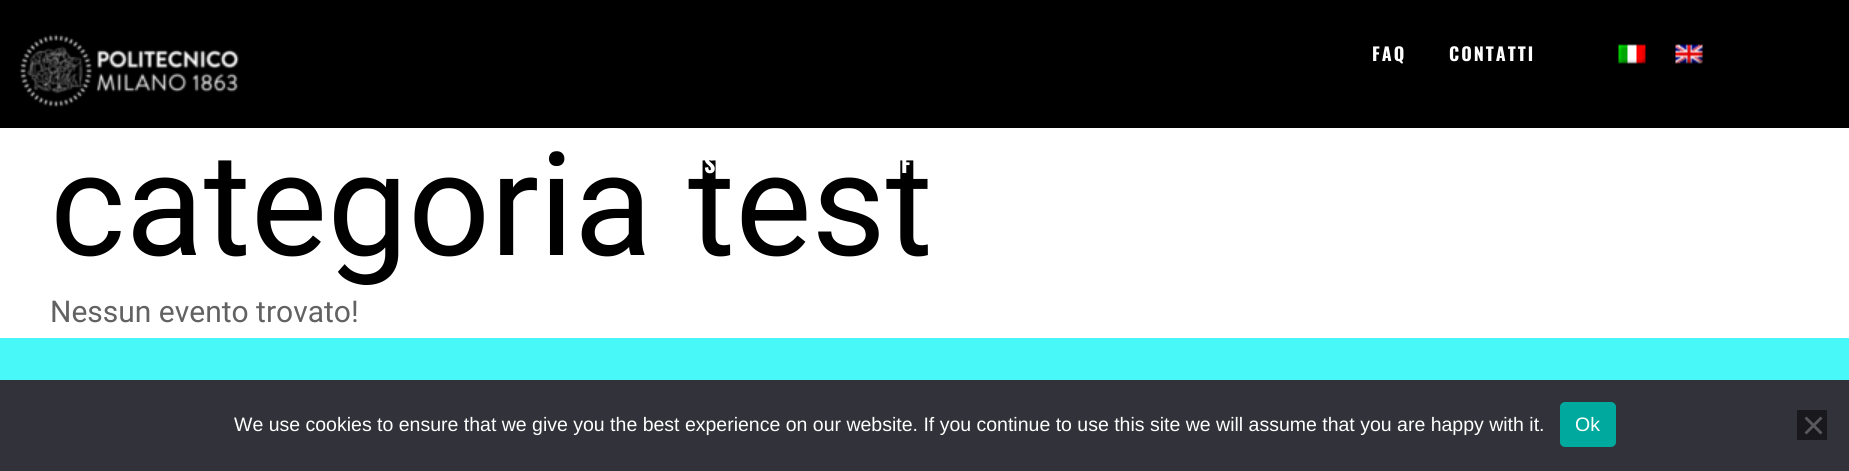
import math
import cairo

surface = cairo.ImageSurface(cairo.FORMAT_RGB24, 1849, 471)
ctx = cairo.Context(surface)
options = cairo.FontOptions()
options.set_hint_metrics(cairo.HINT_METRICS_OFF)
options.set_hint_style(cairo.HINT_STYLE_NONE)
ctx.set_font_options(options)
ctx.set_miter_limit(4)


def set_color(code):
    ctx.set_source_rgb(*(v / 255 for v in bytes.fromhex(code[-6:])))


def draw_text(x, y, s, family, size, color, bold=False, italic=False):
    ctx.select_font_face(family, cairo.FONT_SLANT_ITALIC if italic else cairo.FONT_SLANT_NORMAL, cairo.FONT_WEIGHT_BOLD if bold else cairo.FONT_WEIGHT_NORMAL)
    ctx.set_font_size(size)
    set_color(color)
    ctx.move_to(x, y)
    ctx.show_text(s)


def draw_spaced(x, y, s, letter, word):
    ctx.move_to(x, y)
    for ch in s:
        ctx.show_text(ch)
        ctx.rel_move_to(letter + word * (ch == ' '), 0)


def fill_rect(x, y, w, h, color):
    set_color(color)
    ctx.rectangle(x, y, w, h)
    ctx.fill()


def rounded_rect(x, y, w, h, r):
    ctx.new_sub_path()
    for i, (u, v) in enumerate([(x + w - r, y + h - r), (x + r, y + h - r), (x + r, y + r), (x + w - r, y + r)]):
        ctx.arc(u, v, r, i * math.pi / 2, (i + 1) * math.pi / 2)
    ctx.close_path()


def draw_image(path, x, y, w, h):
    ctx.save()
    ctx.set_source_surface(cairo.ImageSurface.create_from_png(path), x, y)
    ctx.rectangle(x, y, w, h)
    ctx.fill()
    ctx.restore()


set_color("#ffffff")
ctx.paint()
fill_rect(0, 0, 1849, 128, "#000000")
draw_image("assets/img1.png", 19, 34, 220, 73)
ctx.select_font_face("Oswald", cairo.FONT_SLANT_NORMAL, cairo.FONT_WEIGHT_BOLD)
ctx.set_font_size(18)
set_color("#ffffff")
draw_spaced(1372, 61, "FAQ", 2, 0)
draw_spaced(1449, 61, "CONTATTI", 2, 0)
draw_image("assets/img2.png", 1618, 44, 28, 20)
draw_image("assets/img3.png", 1675, 44, 28, 20)
draw_text(50, 255, "categoria test", "Roboto", 144, "#000000")
ctx.select_font_face("Oswald", cairo.FONT_SLANT_NORMAL, cairo.FONT_WEIGHT_BOLD)
ctx.set_font_size(22)
set_color("#ffffff")
draw_spaced(704, 173, "S", 2, 0)
draw_spaced(901, 173, "F", 2, 0)
draw_text(50, 322, "Nessun evento trovato!", "Roboto", 30, "#626262")
fill_rect(0, 338, 1849, 42, "#48f8f8")
fill_rect(0, 380, 1849, 91, "#32323a")
draw_text(234, 431, "We use cookies to ensure that we give you the best experience on our website. If you continue to use this site we will assume that you are happy with it.", "Liberation Sans", 19.5, "#ffffff")
set_color("#00a99d")
rounded_rect(1560, 402, 56, 45, 5)
ctx.fill()
draw_text(1575, 431, "Ok", "Liberation Sans", 19.5, "#ffffff")
fill_rect(1797, 410, 30, 30, "#19191d")
set_color("#59595d")
ctx.new_path()
ctx.move_to(1820.5, 416.5)
ctx.line_to(1822.5, 418.5)
ctx.line_to(1806.5, 434.5)
ctx.line_to(1804.5, 432.5)
ctx.close_path()
ctx.fill()
ctx.new_path()
ctx.move_to(1804.5, 418.5)
ctx.line_to(1806.5, 416.5)
ctx.line_to(1822.5, 432.5)
ctx.line_to(1820.5, 434.5)
ctx.close_path()
ctx.fill()
surface.write_to_png("output.png")
